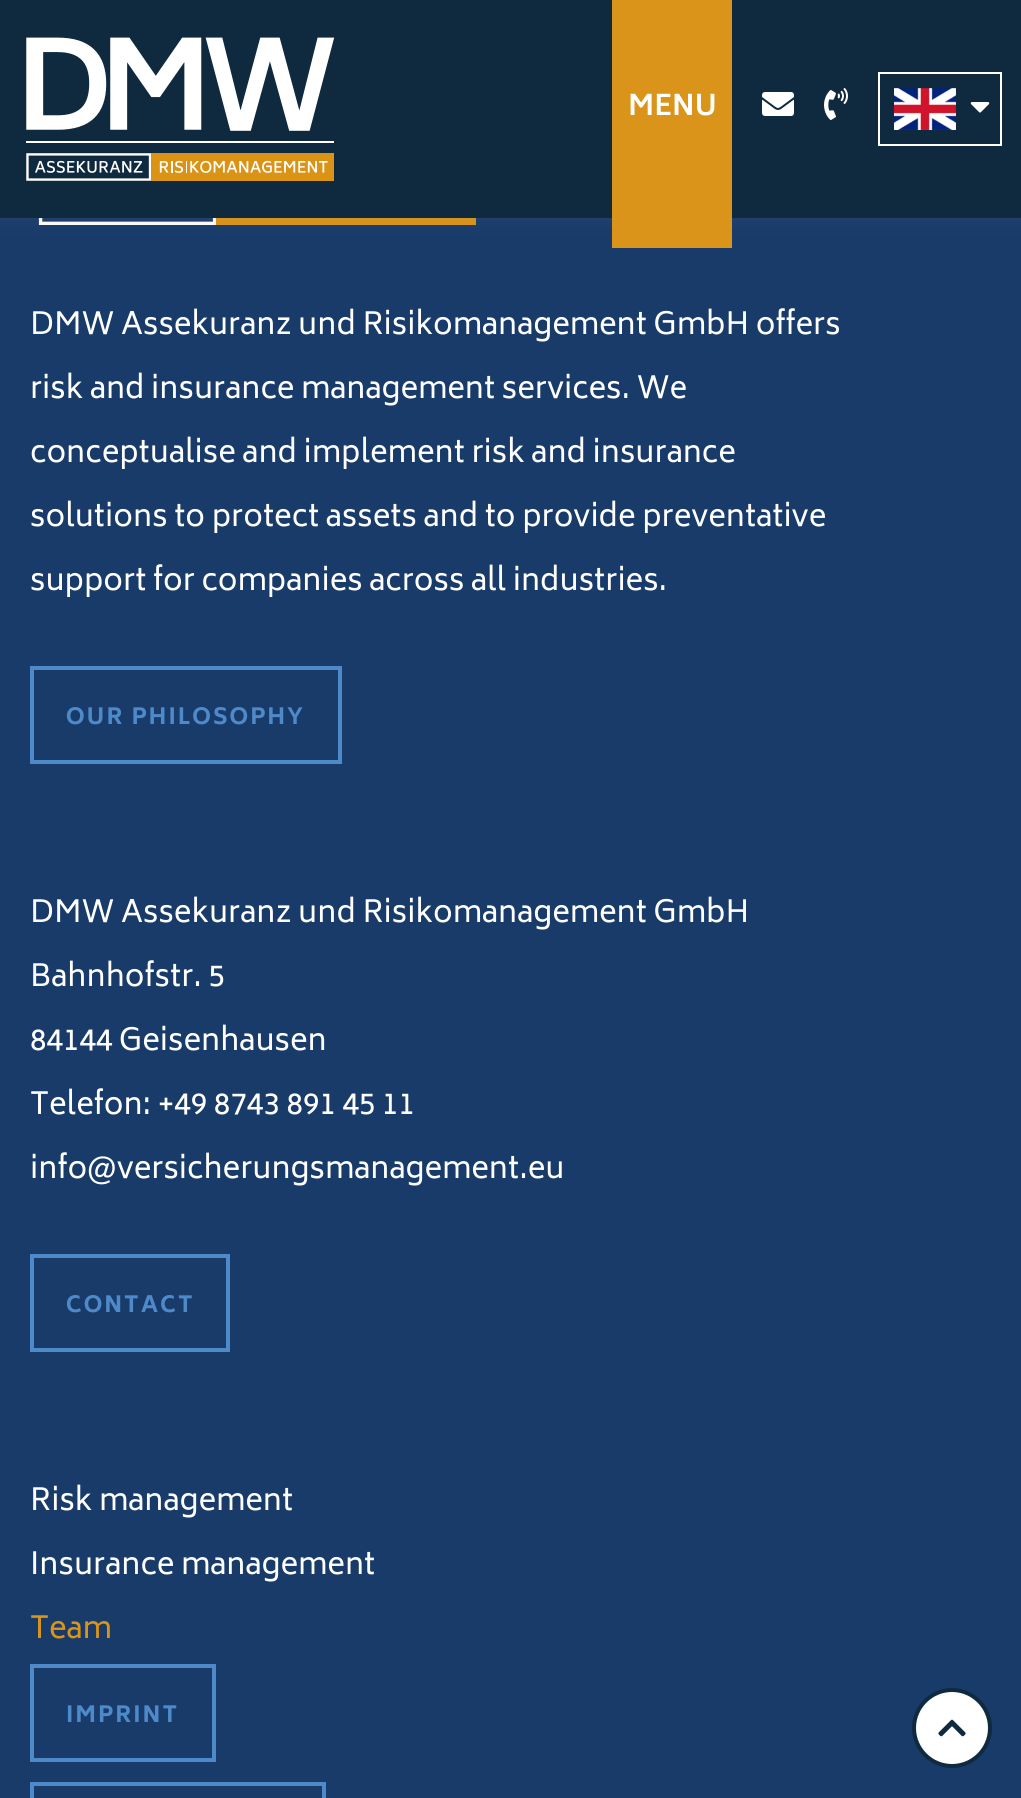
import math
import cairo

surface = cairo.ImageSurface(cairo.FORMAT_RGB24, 1021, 1798)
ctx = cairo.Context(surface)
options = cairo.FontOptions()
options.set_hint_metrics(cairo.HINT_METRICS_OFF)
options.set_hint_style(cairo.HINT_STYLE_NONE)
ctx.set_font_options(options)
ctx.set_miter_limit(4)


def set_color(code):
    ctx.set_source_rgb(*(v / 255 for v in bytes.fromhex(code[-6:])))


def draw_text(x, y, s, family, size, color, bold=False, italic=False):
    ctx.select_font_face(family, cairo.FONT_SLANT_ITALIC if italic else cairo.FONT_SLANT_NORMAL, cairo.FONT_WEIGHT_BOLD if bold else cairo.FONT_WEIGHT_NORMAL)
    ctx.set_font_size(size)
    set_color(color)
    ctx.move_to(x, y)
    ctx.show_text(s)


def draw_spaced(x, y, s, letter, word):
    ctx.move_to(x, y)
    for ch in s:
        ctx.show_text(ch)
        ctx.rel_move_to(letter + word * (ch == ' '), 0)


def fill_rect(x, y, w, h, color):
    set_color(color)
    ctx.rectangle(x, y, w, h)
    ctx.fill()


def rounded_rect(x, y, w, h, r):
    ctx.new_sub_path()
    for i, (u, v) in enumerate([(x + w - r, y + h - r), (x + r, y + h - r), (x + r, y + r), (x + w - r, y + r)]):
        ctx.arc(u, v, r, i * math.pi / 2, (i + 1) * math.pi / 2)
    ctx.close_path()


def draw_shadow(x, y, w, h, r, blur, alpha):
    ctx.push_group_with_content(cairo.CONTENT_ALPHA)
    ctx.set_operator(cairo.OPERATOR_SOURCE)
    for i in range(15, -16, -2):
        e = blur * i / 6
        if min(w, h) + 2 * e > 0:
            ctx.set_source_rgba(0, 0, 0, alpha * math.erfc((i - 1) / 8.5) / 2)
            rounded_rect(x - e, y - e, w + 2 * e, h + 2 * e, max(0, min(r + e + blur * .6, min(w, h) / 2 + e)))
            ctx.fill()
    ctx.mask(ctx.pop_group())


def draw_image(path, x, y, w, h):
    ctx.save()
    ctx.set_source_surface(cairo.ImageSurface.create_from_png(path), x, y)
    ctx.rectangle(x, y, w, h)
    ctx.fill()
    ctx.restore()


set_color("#183b6a")
ctx.paint()
draw_image("assets/img6.png", 38, 218, 438, 7)
set_color("#888787")
draw_shadow(0, 0, 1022, 218, 0, 9, 0.15)
fill_rect(0, 0, 1021, 218, "#0f293f")
draw_image("assets/img1.png", 26, 37, 309, 144)
fill_rect(612, 0, 120, 248, "#da9419")
draw_text(628, 115, "MENU", "Biryani", 28, "#ffffff", bold=True)
draw_image("assets/img2.png", 762, 92, 32, 24)
draw_image("assets/img3.png", 824, 88, 24, 32)
ctx.rectangle(879, 73, 122, 72)
ctx.stroke()
draw_image("assets/img4.png", 894, 88, 62, 42)
draw_image("assets/img5.png", 970, 102, 20, 11)
draw_text(30, 334, "DMW Assekuranz und Risikomanagement GmbH offers", "Biryani", 30, "#ffffff")
draw_text(30, 398, "risk and insurance management services. We", "Biryani", 30, "#ffffff")
draw_text(30, 462, "conceptualise and implement risk and insurance", "Biryani", 30, "#ffffff")
draw_text(30, 526, "solutions to protect assets and to provide preventative", "Biryani", 30, "#ffffff")
draw_text(30, 590, "support for companies across all industries.", "Biryani", 30, "#ffffff")
ctx.rectangle(32, 668, 308, 94)
set_color("#4e8ac9")
ctx.set_line_width(4)
ctx.stroke()
ctx.select_font_face("Biryani ExtraBold")
ctx.set_font_size(22)
draw_spaced(66, 724, "OUR PHILOSOPHY", 2, 0)
draw_text(30, 922, "DMW Assekuranz und Risikomanagement GmbH", "Biryani", 30, "#ffffff")
draw_text(30, 986, "Bahnhofstr. 5", "Biryani", 30, "#ffffff")
draw_text(30, 1050, "84144 Geisenhausen", "Biryani", 30, "#ffffff")
draw_text(30, 1114, "Telefon: +49 8743 891 45 11", "Biryani", 30, "#ffffff")
draw_text(30, 1178, "info@versicherungsmanagement.eu", "Biryani", 30, "#ffffff")
ctx.rectangle(32, 1256, 196, 94)
set_color("#4e8ac9")
ctx.stroke()
ctx.select_font_face("Biryani ExtraBold")
ctx.set_font_size(22)
draw_spaced(66, 1312, "CONTACT", 2, 0)
draw_text(30, 1510, "Risk management", "Biryani", 30, "#ffffff")
draw_text(30, 1574, "Insurance management", "Biryani", 30, "#ffffff")
draw_text(30, 1638, "Team", "Biryani", 30, "#da9419")
ctx.rectangle(32, 1666, 182, 94)
set_color("#4e8ac9")
ctx.stroke()
ctx.select_font_face("Biryani ExtraBold")
ctx.set_font_size(22)
draw_spaced(66, 1722, "IMPRINT", 2, 0)
ctx.rectangle(32, 1784, 292, 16)
ctx.stroke()
set_color("#ffffff")
ctx.arc(952, 1728, 38, 0, 2 * math.pi)
ctx.fill_preserve()
set_color("#0f293f")
ctx.stroke()
draw_image("assets/img7.png", 938, 1719, 28, 18)
surface.write_to_png("output.png")
